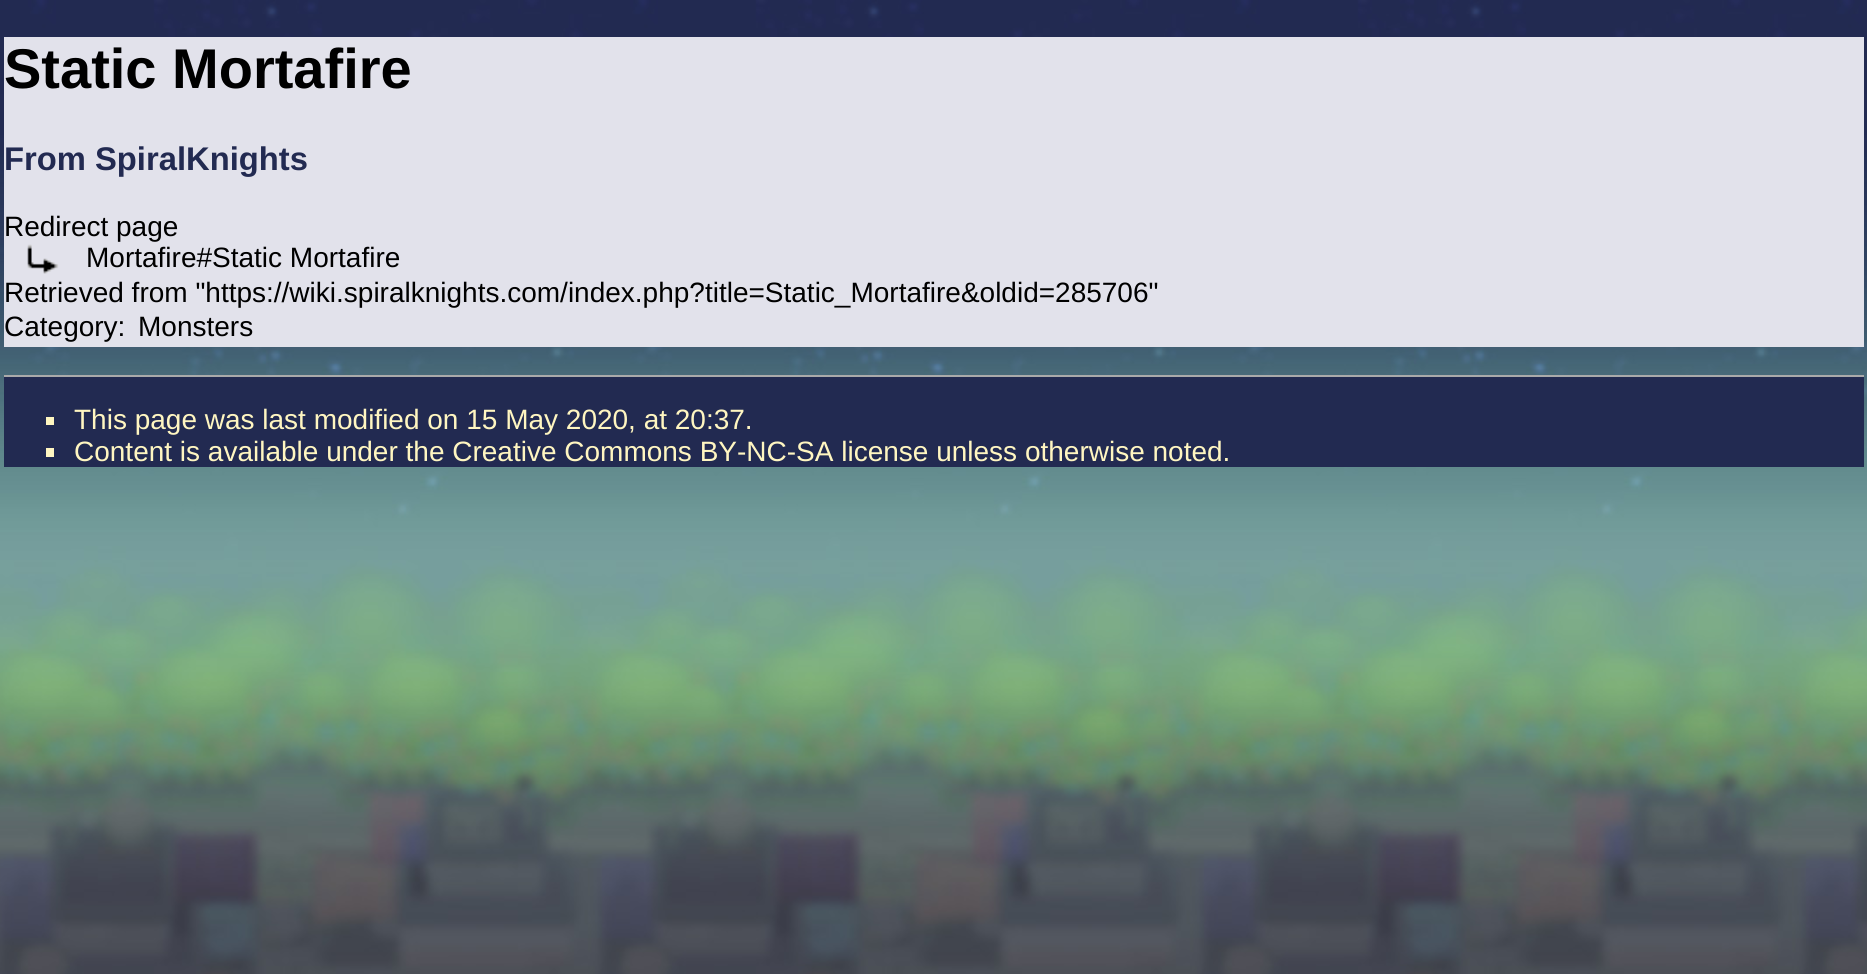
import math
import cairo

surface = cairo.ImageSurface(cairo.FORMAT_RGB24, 1867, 974)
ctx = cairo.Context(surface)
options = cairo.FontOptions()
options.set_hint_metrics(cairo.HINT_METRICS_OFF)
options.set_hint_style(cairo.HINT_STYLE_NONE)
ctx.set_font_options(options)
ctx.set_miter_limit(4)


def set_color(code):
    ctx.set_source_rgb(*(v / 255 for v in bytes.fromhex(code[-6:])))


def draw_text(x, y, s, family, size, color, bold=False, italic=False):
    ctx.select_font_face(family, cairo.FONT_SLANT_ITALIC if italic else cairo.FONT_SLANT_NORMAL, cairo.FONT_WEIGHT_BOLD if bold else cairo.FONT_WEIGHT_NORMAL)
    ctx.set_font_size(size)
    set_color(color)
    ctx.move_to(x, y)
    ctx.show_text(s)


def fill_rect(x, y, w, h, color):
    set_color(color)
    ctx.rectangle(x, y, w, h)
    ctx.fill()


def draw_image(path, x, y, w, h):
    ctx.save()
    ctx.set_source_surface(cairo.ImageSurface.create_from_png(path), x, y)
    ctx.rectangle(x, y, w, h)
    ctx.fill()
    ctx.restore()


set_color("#ffffff")
ctx.paint()
draw_image("assets/img1.png", 0, 0, 1867, 974)
fill_rect(4, 37, 1860, 310, "#e2e2eb")
draw_text(4, 88, "Static Mortafire", "Liberation Sans", 56, "#000000", bold=True)
draw_text(4, 170, "From SpiralKnights", "Liberation Sans", 32.75, "#222a51", bold=True)
draw_text(4, 236, "Redirect page", "Liberation Sans", 28, "#000000")
draw_image("assets/img2.png", 27, 244, 32, 30)
draw_text(86, 267, "Mortafire#Static Mortafire", "Liberation Sans", 28, "#000000")
draw_text(4, 302, "Retrieved from \"https://wiki.spiralknights.com/index.php?title=Static_Mortafire&oldid=285706\"", "Liberation Sans", 28, "#000000")
draw_text(4, 336, "Category:", "Liberation Sans", 28, "#000000")
draw_text(138, 336, "Monsters", "Liberation Sans", 28, "#000000")
fill_rect(4, 377, 1860, 90, "#222a51")
fill_rect(4, 375, 1860, 2, "#aaaaaa")
fill_rect(46, 417, 8, 8, "#fff6c1")
draw_text(74, 429, "This page was last modified on 15 May 2020, at 20:37.", "Liberation Sans", 28, "#fff6c1")
fill_rect(46, 448, 8, 9, "#fff6c1")
draw_text(74, 461, "Content is available under the Creative Commons BY-NC-SA license unless otherwise noted.", "Liberation Sans", 28, "#fff6c1")
surface.write_to_png("output.png")
